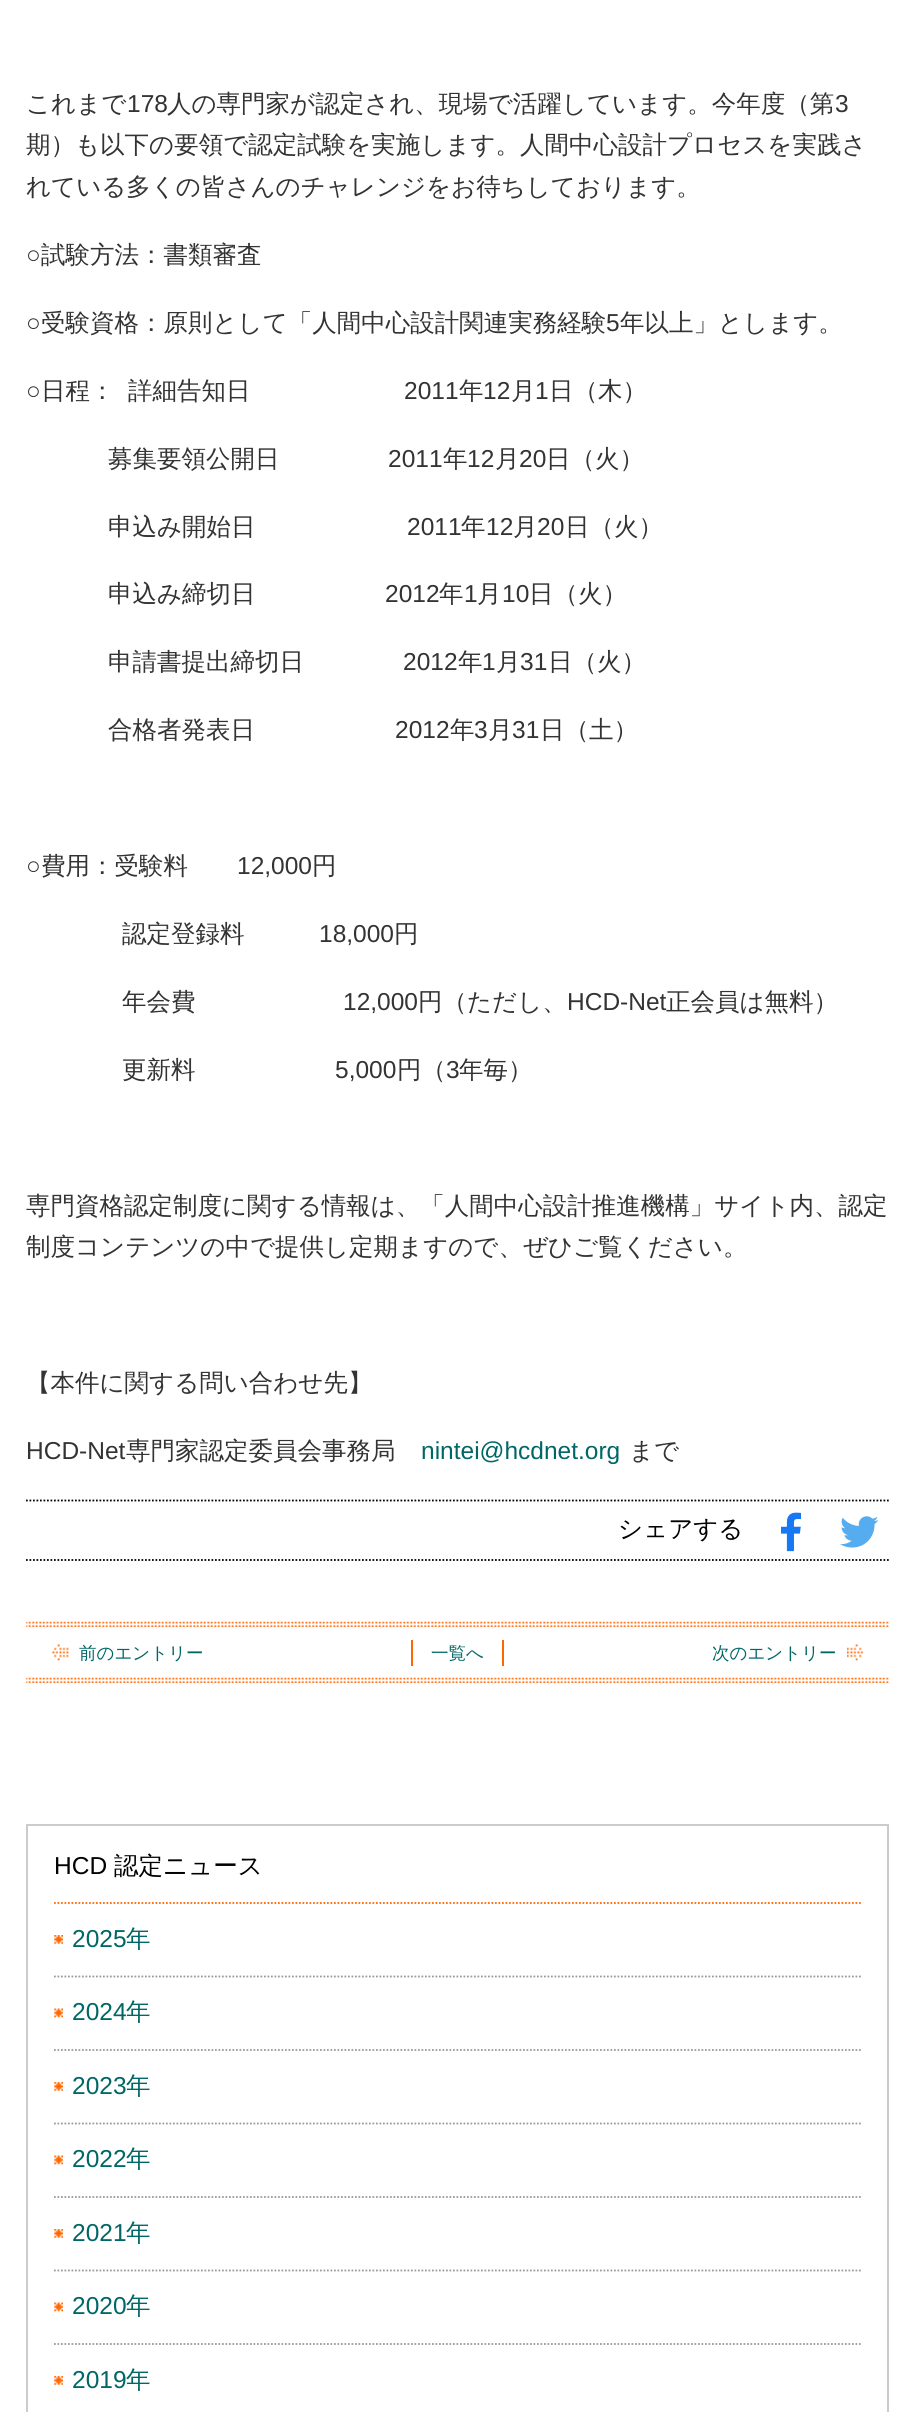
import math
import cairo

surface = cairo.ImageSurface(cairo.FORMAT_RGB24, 914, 2412)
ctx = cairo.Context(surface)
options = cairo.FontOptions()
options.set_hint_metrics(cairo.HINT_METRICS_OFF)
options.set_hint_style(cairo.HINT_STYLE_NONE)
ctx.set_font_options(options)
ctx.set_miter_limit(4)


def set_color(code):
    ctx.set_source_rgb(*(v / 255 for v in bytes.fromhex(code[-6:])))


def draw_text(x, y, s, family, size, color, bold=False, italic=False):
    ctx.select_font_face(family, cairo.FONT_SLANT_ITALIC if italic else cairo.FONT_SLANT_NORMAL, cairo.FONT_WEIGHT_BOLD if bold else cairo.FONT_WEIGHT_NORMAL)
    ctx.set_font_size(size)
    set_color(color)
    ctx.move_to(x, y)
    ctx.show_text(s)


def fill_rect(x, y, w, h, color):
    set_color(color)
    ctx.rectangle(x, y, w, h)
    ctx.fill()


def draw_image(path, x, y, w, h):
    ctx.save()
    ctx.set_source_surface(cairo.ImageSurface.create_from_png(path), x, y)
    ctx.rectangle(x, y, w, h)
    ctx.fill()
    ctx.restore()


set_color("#ffffff")
ctx.paint()
draw_text(26, 112, "これまで", "WenQuanYi Zen Hei Medium", 24.5, "#333333")
draw_text(127, 112, "178", "Liberation Sans", 24.5, "#333333")
draw_text(167, 112, "人の専門家が認定され、現場で活躍しています。今年度（第", "WenQuanYi Zen Hei Medium", 24.5, "#333333")
draw_text(835, 112, "3", "Liberation Sans", 24.5, "#333333")
draw_text(26, 153, "期）も以下の要領で認定試験を実施します。人間中心設計プロセスを実践さ", "WenQuanYi Zen Hei Medium", 24.5, "#333333")
draw_text(26, 195, "れている多くの皆さんのチャレンジをお待ちしております。", "WenQuanYi Zen Hei Medium", 24.5, "#333333")
draw_text(26, 263, "○", "Liberation Sans", 24.5, "#333333")
draw_text(41, 263, "試験方法：書類審査", "WenQuanYi Zen Hei Medium", 24.5, "#333333")
draw_text(26, 331, "○", "Liberation Sans", 24.5, "#333333")
draw_text(41, 331, "受験資格：原則として「人間中心設計関連実務経験", "WenQuanYi Zen Hei Medium", 24.5, "#333333")
draw_text(606, 331, "5", "Liberation Sans", 24.5, "#333333")
draw_text(620, 331, "年以上」とします。", "WenQuanYi Zen Hei Medium", 24.5, "#333333")
draw_text(26, 399, "○", "Liberation Sans", 24.5, "#333333")
draw_text(41, 399, "日程：", "WenQuanYi Zen Hei Medium", 24.5, "#333333")
draw_text(128, 399, "詳細告知日", "WenQuanYi Zen Hei Medium", 24.5, "#333333")
draw_text(404, 399, "2011", "Liberation Sans", 24.5, "#333333")
draw_text(459, 399, "年", "WenQuanYi Zen Hei Medium", 24.5, "#333333")
draw_text(483, 399, "12", "Liberation Sans", 24.5, "#333333")
draw_text(511, 399, "月", "WenQuanYi Zen Hei Medium", 24.5, "#333333")
draw_text(535, 399, "1", "Liberation Sans", 24.5, "#333333")
draw_text(549, 399, "日（木）", "WenQuanYi Zen Hei Medium", 24.5, "#333333")
draw_text(108, 467, "募集要領公開日", "WenQuanYi Zen Hei Medium", 24.5, "#333333")
draw_text(388, 467, "2011", "Liberation Sans", 24.5, "#333333")
draw_text(443, 467, "年", "WenQuanYi Zen Hei Medium", 24.5, "#333333")
draw_text(467, 467, "12", "Liberation Sans", 24.5, "#333333")
draw_text(495, 467, "月", "WenQuanYi Zen Hei Medium", 24.5, "#333333")
draw_text(519, 467, "20", "Liberation Sans", 24.5, "#333333")
draw_text(546, 467, "日（火）", "WenQuanYi Zen Hei Medium", 24.5, "#333333")
draw_text(108, 535, "申込み開始日", "WenQuanYi Zen Hei Medium", 24.5, "#333333")
draw_text(407, 535, "2011", "Liberation Sans", 24.5, "#333333")
draw_text(461, 535, "年", "WenQuanYi Zen Hei Medium", 24.5, "#333333")
draw_text(486, 535, "12", "Liberation Sans", 24.5, "#333333")
draw_text(513, 535, "月", "WenQuanYi Zen Hei Medium", 24.5, "#333333")
draw_text(537, 535, "20", "Liberation Sans", 24.5, "#333333")
draw_text(565, 535, "日（火）", "WenQuanYi Zen Hei Medium", 24.5, "#333333")
draw_text(108, 602, "申込み締切日", "WenQuanYi Zen Hei Medium", 24.5, "#333333")
draw_text(385, 602, "2012", "Liberation Sans", 24.5, "#333333")
draw_text(439, 602, "年", "WenQuanYi Zen Hei Medium", 24.5, "#333333")
draw_text(464, 602, "1", "Liberation Sans", 24.5, "#333333")
draw_text(477, 602, "月", "WenQuanYi Zen Hei Medium", 24.5, "#333333")
draw_text(502, 602, "10", "Liberation Sans", 24.5, "#333333")
draw_text(529, 602, "日（火）", "WenQuanYi Zen Hei Medium", 24.5, "#333333")
draw_text(108, 670, "申請書提出締切日", "WenQuanYi Zen Hei Medium", 24.5, "#333333")
draw_text(403, 670, "2012", "Liberation Sans", 24.5, "#333333")
draw_text(458, 670, "年", "WenQuanYi Zen Hei Medium", 24.5, "#333333")
draw_text(482, 670, "1", "Liberation Sans", 24.5, "#333333")
draw_text(496, 670, "月", "WenQuanYi Zen Hei Medium", 24.5, "#333333")
draw_text(520, 670, "31", "Liberation Sans", 24.5, "#333333")
draw_text(548, 670, "日（火）", "WenQuanYi Zen Hei Medium", 24.5, "#333333")
draw_text(108, 738, "合格者発表日", "WenQuanYi Zen Hei Medium", 24.5, "#333333")
draw_text(395, 738, "2012", "Liberation Sans", 24.5, "#333333")
draw_text(450, 738, "年", "WenQuanYi Zen Hei Medium", 24.5, "#333333")
draw_text(474, 738, "3", "Liberation Sans", 24.5, "#333333")
draw_text(488, 738, "月", "WenQuanYi Zen Hei Medium", 24.5, "#333333")
draw_text(512, 738, "31", "Liberation Sans", 24.5, "#333333")
draw_text(540, 738, "日（土）", "WenQuanYi Zen Hei Medium", 24.5, "#333333")
draw_text(26, 874, "○", "Liberation Sans", 24.5, "#333333")
draw_text(41, 874, "費用：受験料", "WenQuanYi Zen Hei Medium", 24.5, "#333333")
draw_text(237, 874, "12,000", "Liberation Sans", 24.5, "#333333")
draw_text(312, 874, "円", "WenQuanYi Zen Hei Medium", 24.5, "#333333")
draw_text(122, 942, "認定登録料", "WenQuanYi Zen Hei Medium", 24.5, "#333333")
draw_text(319, 942, "18,000", "Liberation Sans", 24.5, "#333333")
draw_text(394, 942, "円", "WenQuanYi Zen Hei Medium", 24.5, "#333333")
draw_text(122, 1010, "年会費", "WenQuanYi Zen Hei Medium", 24.5, "#333333")
draw_text(343, 1010, "12,000", "Liberation Sans", 24.5, "#333333")
draw_text(418, 1010, "円（ただし、", "WenQuanYi Zen Hei Medium", 24.5, "#333333")
draw_text(567, 1010, "HCD-Net", "Liberation Sans", 24.5, "#333333")
draw_text(666, 1010, "正会員は無料）", "WenQuanYi Zen Hei Medium", 24.5, "#333333")
draw_text(122, 1078, "更新料", "WenQuanYi Zen Hei Medium", 24.5, "#333333")
draw_text(335, 1078, "5,000", "Liberation Sans", 24.5, "#333333")
draw_text(397, 1078, "円（", "WenQuanYi Zen Hei Medium", 24.5, "#333333")
draw_text(446, 1078, "3", "Liberation Sans", 24.5, "#333333")
draw_text(459, 1078, "年毎）", "WenQuanYi Zen Hei Medium", 24.5, "#333333")
draw_text(26, 1214, "専門資格認定制度に関する情報は、「人間中心設計推進機構」サイト内、認定", "WenQuanYi Zen Hei Medium", 24.5, "#333333")
draw_text(26, 1255, "制度コンテンツの中で提供し定期ますので、ぜひご覧ください。", "WenQuanYi Zen Hei Medium", 24.5, "#333333")
draw_text(26, 1391, "【本件に関する問い合わせ先】", "WenQuanYi Zen Hei Medium", 24.5, "#333333")
draw_text(26, 1459, "HCD-Net", "Liberation Sans", 24.5, "#333333")
draw_text(126, 1459, "専門家認定委員会事務局", "WenQuanYi Zen Hei Medium", 24.5, "#333333")
draw_text(421, 1459, "nintei@hcdnet.org", "Liberation Sans", 24.5, "#006666")
draw_text(629, 1459, "まで", "WenQuanYi Zen Hei Medium", 24.5, "#333333")
ctx.new_path()
ctx.move_to(26, 1500.5)
ctx.line_to(889, 1500.5)
set_color("#000000")
ctx.set_line_width(1.8)
ctx.set_dash([1.75, 1.75])
ctx.stroke()
ctx.new_path()
ctx.move_to(26, 1560)
ctx.line_to(889, 1560)
ctx.stroke()
draw_text(618, 1537, "シェアする", "WenQuanYi Zen Hei Medium", 24.5, "#000000")
draw_image("assets/img1.png", 781, 1512, 20, 40)
draw_image("assets/img2.png", 840, 1516, 39, 32)
draw_image("assets/img3.png", 26, 1621, 863, 6)
draw_image("assets/img4.png", 52, 1644, 17, 17)
draw_text(79, 1659, "前のエントリー", "WenQuanYi Zen Hei Medium", 17.5, "#006666")
fill_rect(502, 1640, 2, 26, "#ff6600")
fill_rect(411, 1640, 2, 26, "#ff6600")
draw_text(431, 1659, "一覧へ", "WenQuanYi Zen Hei Medium", 17.5, "#006666")
draw_image("assets/img5.png", 847, 1644, 16, 17)
draw_text(712, 1659, "次のエントリー", "WenQuanYi Zen Hei Medium", 17.5, "#006666")
draw_image("assets/img3.png", 26, 1677, 863, 6)
ctx.rectangle(27, 1825, 861, 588)
set_color("#cccccc")
ctx.set_line_width(2)
ctx.set_dash([])
ctx.stroke()
ctx.new_path()
ctx.move_to(54, 1903)
ctx.line_to(861, 1903)
set_color("#ff6600")
ctx.set_line_width(1.8)
ctx.set_dash([1.75, 1.75])
ctx.stroke()
draw_text(54, 1874, "HCD", "Liberation Sans", 24.5, "#000000")
draw_text(114, 1874, "認定ニュース", "WenQuanYi Zen Hei Medium", 24.5, "#000000")
draw_image("assets/img6.png", 54, 1935, 9, 9)
draw_text(72, 1947, "2025", "Liberation Sans", 24.5, "#006666")
draw_text(126, 1947, "年", "WenQuanYi Zen Hei Medium", 24.5, "#006666")
ctx.new_path()
ctx.move_to(54, 1976.5)
ctx.line_to(861, 1976.5)
set_color("#999999")
ctx.stroke()
draw_image("assets/img7.png", 54, 2008, 9, 10)
draw_text(72, 2020, "2024", "Liberation Sans", 24.5, "#006666")
draw_text(126, 2020, "年", "WenQuanYi Zen Hei Medium", 24.5, "#006666")
ctx.new_path()
ctx.move_to(54, 2050)
ctx.line_to(861, 2050)
set_color("#999999")
ctx.stroke()
draw_image("assets/img6.png", 54, 2082, 9, 9)
draw_text(72, 2094, "2023", "Liberation Sans", 24.5, "#006666")
draw_text(126, 2094, "年", "WenQuanYi Zen Hei Medium", 24.5, "#006666")
ctx.new_path()
ctx.move_to(54, 2123.5)
ctx.line_to(861, 2123.5)
set_color("#999999")
ctx.stroke()
draw_image("assets/img7.png", 54, 2155, 9, 10)
draw_text(72, 2167, "2022", "Liberation Sans", 24.5, "#006666")
draw_text(126, 2167, "年", "WenQuanYi Zen Hei Medium", 24.5, "#006666")
ctx.new_path()
ctx.move_to(54, 2197)
ctx.line_to(861, 2197)
set_color("#999999")
ctx.stroke()
draw_image("assets/img6.png", 54, 2229, 9, 9)
draw_text(72, 2241, "2021", "Liberation Sans", 24.5, "#006666")
draw_text(126, 2241, "年", "WenQuanYi Zen Hei Medium", 24.5, "#006666")
ctx.new_path()
ctx.move_to(54, 2270.5)
ctx.line_to(861, 2270.5)
set_color("#999999")
ctx.stroke()
draw_image("assets/img7.png", 54, 2302, 9, 10)
draw_text(72, 2314, "2020", "Liberation Sans", 24.5, "#006666")
draw_text(126, 2314, "年", "WenQuanYi Zen Hei Medium", 24.5, "#006666")
ctx.new_path()
ctx.move_to(54, 2344)
ctx.line_to(861, 2344)
set_color("#999999")
ctx.stroke()
draw_image("assets/img6.png", 54, 2376, 9, 9)
draw_text(72, 2388, "2019", "Liberation Sans", 24.5, "#006666")
draw_text(126, 2388, "年", "WenQuanYi Zen Hei Medium", 24.5, "#006666")
surface.write_to_png("output.png")
